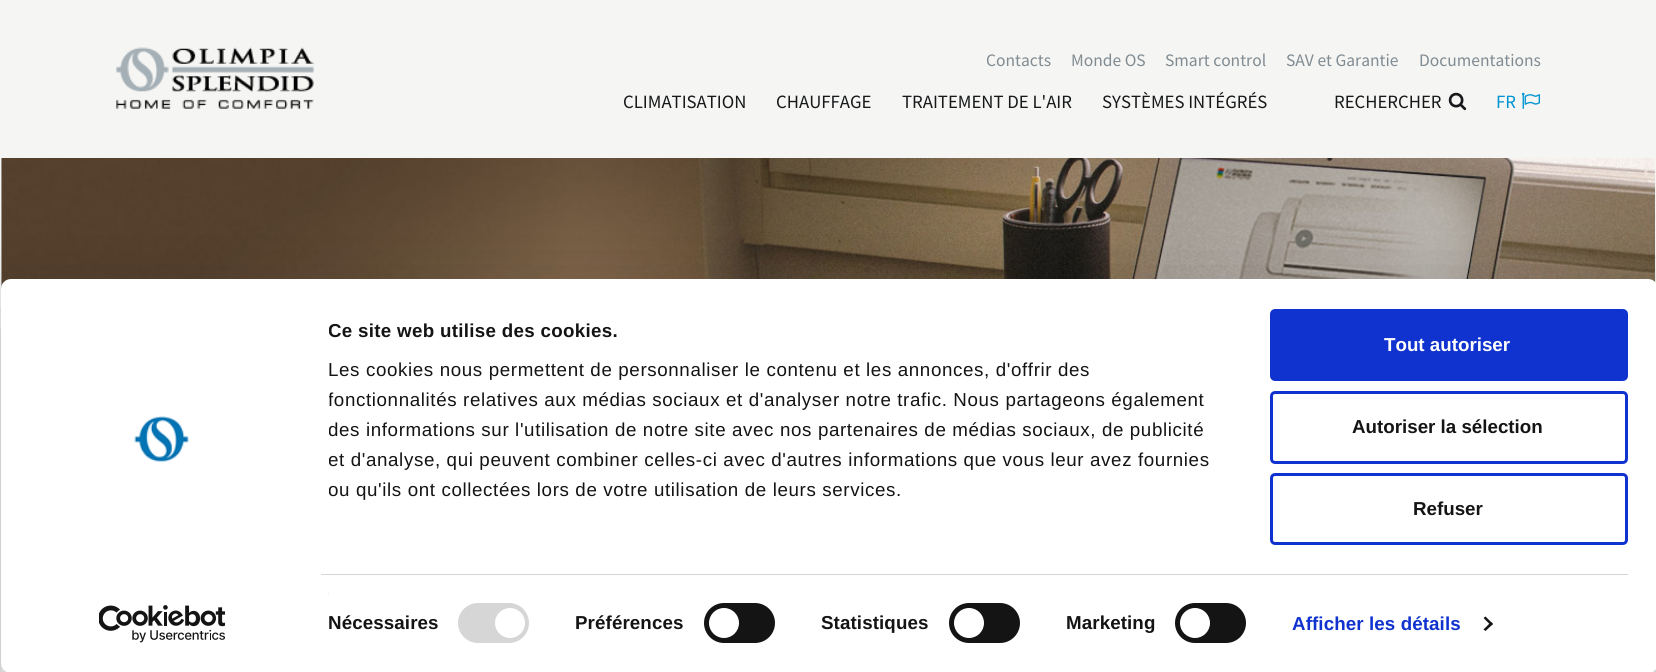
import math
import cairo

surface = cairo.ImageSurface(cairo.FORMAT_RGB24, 1656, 672)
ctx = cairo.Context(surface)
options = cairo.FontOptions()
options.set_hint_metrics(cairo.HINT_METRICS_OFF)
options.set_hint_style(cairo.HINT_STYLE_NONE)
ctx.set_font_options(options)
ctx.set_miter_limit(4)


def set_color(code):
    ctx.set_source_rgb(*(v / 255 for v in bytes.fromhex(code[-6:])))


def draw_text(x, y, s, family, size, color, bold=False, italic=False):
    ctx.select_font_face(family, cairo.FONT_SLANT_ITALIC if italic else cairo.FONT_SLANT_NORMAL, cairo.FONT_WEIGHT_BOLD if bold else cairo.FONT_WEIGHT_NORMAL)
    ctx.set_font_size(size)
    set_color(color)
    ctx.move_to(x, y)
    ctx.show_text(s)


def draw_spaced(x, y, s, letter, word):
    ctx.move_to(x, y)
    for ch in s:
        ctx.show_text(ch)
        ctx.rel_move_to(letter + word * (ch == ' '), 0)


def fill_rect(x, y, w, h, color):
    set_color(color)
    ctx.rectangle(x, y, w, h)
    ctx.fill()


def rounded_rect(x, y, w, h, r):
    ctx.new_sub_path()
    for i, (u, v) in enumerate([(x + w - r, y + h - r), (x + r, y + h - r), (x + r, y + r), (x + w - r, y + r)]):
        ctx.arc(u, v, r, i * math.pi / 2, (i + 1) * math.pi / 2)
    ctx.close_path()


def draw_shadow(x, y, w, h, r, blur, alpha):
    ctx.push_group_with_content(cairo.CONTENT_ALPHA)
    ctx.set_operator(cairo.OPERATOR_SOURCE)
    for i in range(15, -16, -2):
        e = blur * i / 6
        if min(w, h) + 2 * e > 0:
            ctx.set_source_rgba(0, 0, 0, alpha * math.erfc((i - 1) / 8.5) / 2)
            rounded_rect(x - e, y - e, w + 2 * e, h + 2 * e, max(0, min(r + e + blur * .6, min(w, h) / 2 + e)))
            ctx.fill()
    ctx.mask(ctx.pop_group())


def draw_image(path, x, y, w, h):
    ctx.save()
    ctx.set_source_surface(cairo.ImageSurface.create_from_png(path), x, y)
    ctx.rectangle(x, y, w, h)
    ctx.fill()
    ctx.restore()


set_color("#ffffff")
ctx.paint()
fill_rect(0, 0, 1656, 158, "#f5f5f3")
draw_image("assets/img1.png", 116, 47, 198, 62)
draw_text(986, 66, "Contacts", "Source Sans Pro", 17.5, "#808b92")
draw_text(1071, 66, "Monde OS", "Source Sans Pro", 17.5, "#808b92")
draw_text(1165, 66, "Smart control", "Source Sans Pro", 17.5, "#808b92")
draw_text(1286, 66, "SAV et Garantie", "Source Sans Pro", 17.5, "#808b92")
draw_text(1419, 66, "Documentations", "Source Sans Pro", 17.5, "#808b92")
draw_text(623, 108, "CLIMATISATION", "Source Sans Pro", 18.75, "#16181a")
draw_text(776, 108, "CHAUFFAGE", "Source Sans Pro", 18.75, "#16181a")
draw_text(902, 108, "TRAITEMENT DE L'AIR", "Source Sans Pro", 18.75, "#16181a")
draw_text(1102, 108, "SYSTÈMES INTÉGRÉS", "Source Sans Pro", 18.75, "#16181a")
draw_text(1334, 108, "RECHERCHER", "Source Sans Pro", 18.75, "#16181a")
draw_image("assets/img2.png", 1448, 92, 19, 19)
draw_text(1496, 108, "FR", "Source Sans Pro", 18.75, "#0093d2")
draw_image("assets/img3.png", 1522, 92, 18, 17)
fill_rect(1655, 158, 1, 514, "#f5f5f3")
fill_rect(0, 158, 1, 514, "#f5f5f3")
draw_image("assets/img4.png", 1, 158, 1654, 131)
set_color("#000000")
draw_shadow(1, 316, 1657, 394, 10, 44, 0.3)
set_color("#ffffff")
rounded_rect(1, 279, 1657, 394, 10)
ctx.fill()
ctx.save()
ctx.rectangle(329, 316, 905, 222)
ctx.clip()
ctx.select_font_face("Liberation Sans", cairo.FONT_SLANT_NORMAL, cairo.FONT_WEIGHT_BOLD)
set_color("#141414")
draw_spaced(328, 337, "Ce site web utilise des cookies.", 0.3, 0)
ctx.restore()
ctx.select_font_face("Liberation Sans")
set_color("#141414")
draw_spaced(328, 376, "Les cookies nous permettent de personnaliser le contenu et les annonces, d'offrir des", 0.62, 0)
ctx.save()
ctx.rectangle(329, 316, 905, 222)
ctx.clip()
draw_spaced(328, 406, "fonctionnalités relatives aux médias sociaux et d'analyser notre trafic. Nous partageons également", 0.62, 0)
draw_spaced(328, 436, "des informations sur l'utilisation de notre site avec nos partenaires de médias sociaux, de publicité", 0.62, 0)
draw_spaced(328, 466, "et d'analyse, qui peuvent combiner celles-ci avec d'autres informations que vous leur avez fournies", 0.62, 0)
draw_spaced(328, 496, "ou qu'ils ont collectées lors de votre utilisation de leurs services.", 0.62, 0)
ctx.restore()
fill_rect(321, 574, 1307, 1, "#d6d6d6")
fill_rect(328, 593, 1, 1, "#e5e5e5")
ctx.select_font_face("Liberation Sans", cairo.FONT_SLANT_NORMAL, cairo.FONT_WEIGHT_BOLD)
set_color("#141414")
draw_spaced(328, 629, "Nécessaires", 0.1, 0)
set_color("#d6d6d6")
rounded_rect(458, 603, 71, 40, 20)
ctx.fill()
set_color("#ffffff")
ctx.arc(510, 623, 15, 0, 2 * math.pi)
ctx.fill()
set_color("#141414")
draw_spaced(575, 629, "Préférences", 0.1, 0)
rounded_rect(704, 603, 71, 40, 20)
ctx.fill()
set_color("#ffffff")
ctx.arc(724, 623, 15, 0, 2 * math.pi)
ctx.fill()
set_color("#141414")
draw_spaced(821, 629, "Statistiques", 0.1, 0)
rounded_rect(949, 603, 71, 40, 20)
ctx.fill()
set_color("#ffffff")
ctx.arc(969, 623, 15, 0, 2 * math.pi)
ctx.fill()
set_color("#141414")
draw_spaced(1066, 629, "Marketing", 0.1, 0)
rounded_rect(1175, 603, 71, 40, 20)
ctx.fill()
set_color("#ffffff")
ctx.arc(1195, 623, 15, 0, 2 * math.pi)
ctx.fill()
set_color("#1032cf")
draw_spaced(1292, 630, "Afficher les détails", 0.1, 0)
set_color("#141414")
ctx.new_path()
ctx.move_to(1485.5, 616.5)
ctx.line_to(1493, 624)
ctx.line_to(1491, 625.5)
ctx.line_to(1483.5, 618)
ctx.close_path()
ctx.fill()
ctx.new_path()
ctx.move_to(1491, 622)
ctx.line_to(1493, 624)
ctx.line_to(1485.5, 631)
ctx.line_to(1483.5, 629.5)
ctx.close_path()
ctx.fill()
draw_image("assets/img5.png", 134, 416, 55, 46)
draw_image("assets/img6.png", 99, 605, 126, 38)
set_color("#1032cf")
rounded_rect(1271.5, 310.5, 355, 69, 3.5)
ctx.fill_preserve()
ctx.set_line_width(3)
ctx.stroke()
draw_text(1384, 351, "Tout autoriser", "Liberation Sans", 18.75, "#ffffff", bold=True)
rounded_rect(1271.5, 392.5, 355, 70, 3.5)
set_color("#1032cf")
ctx.stroke()
draw_text(1352, 433, "Autoriser la sélection", "Liberation Sans", 18.75, "#141414", bold=True)
rounded_rect(1271.5, 474.5, 355, 69, 3.5)
set_color("#1032cf")
ctx.stroke()
draw_text(1413, 515, "Refuser", "Liberation Sans", 18.75, "#141414", bold=True)
surface.write_to_png("output.png")
